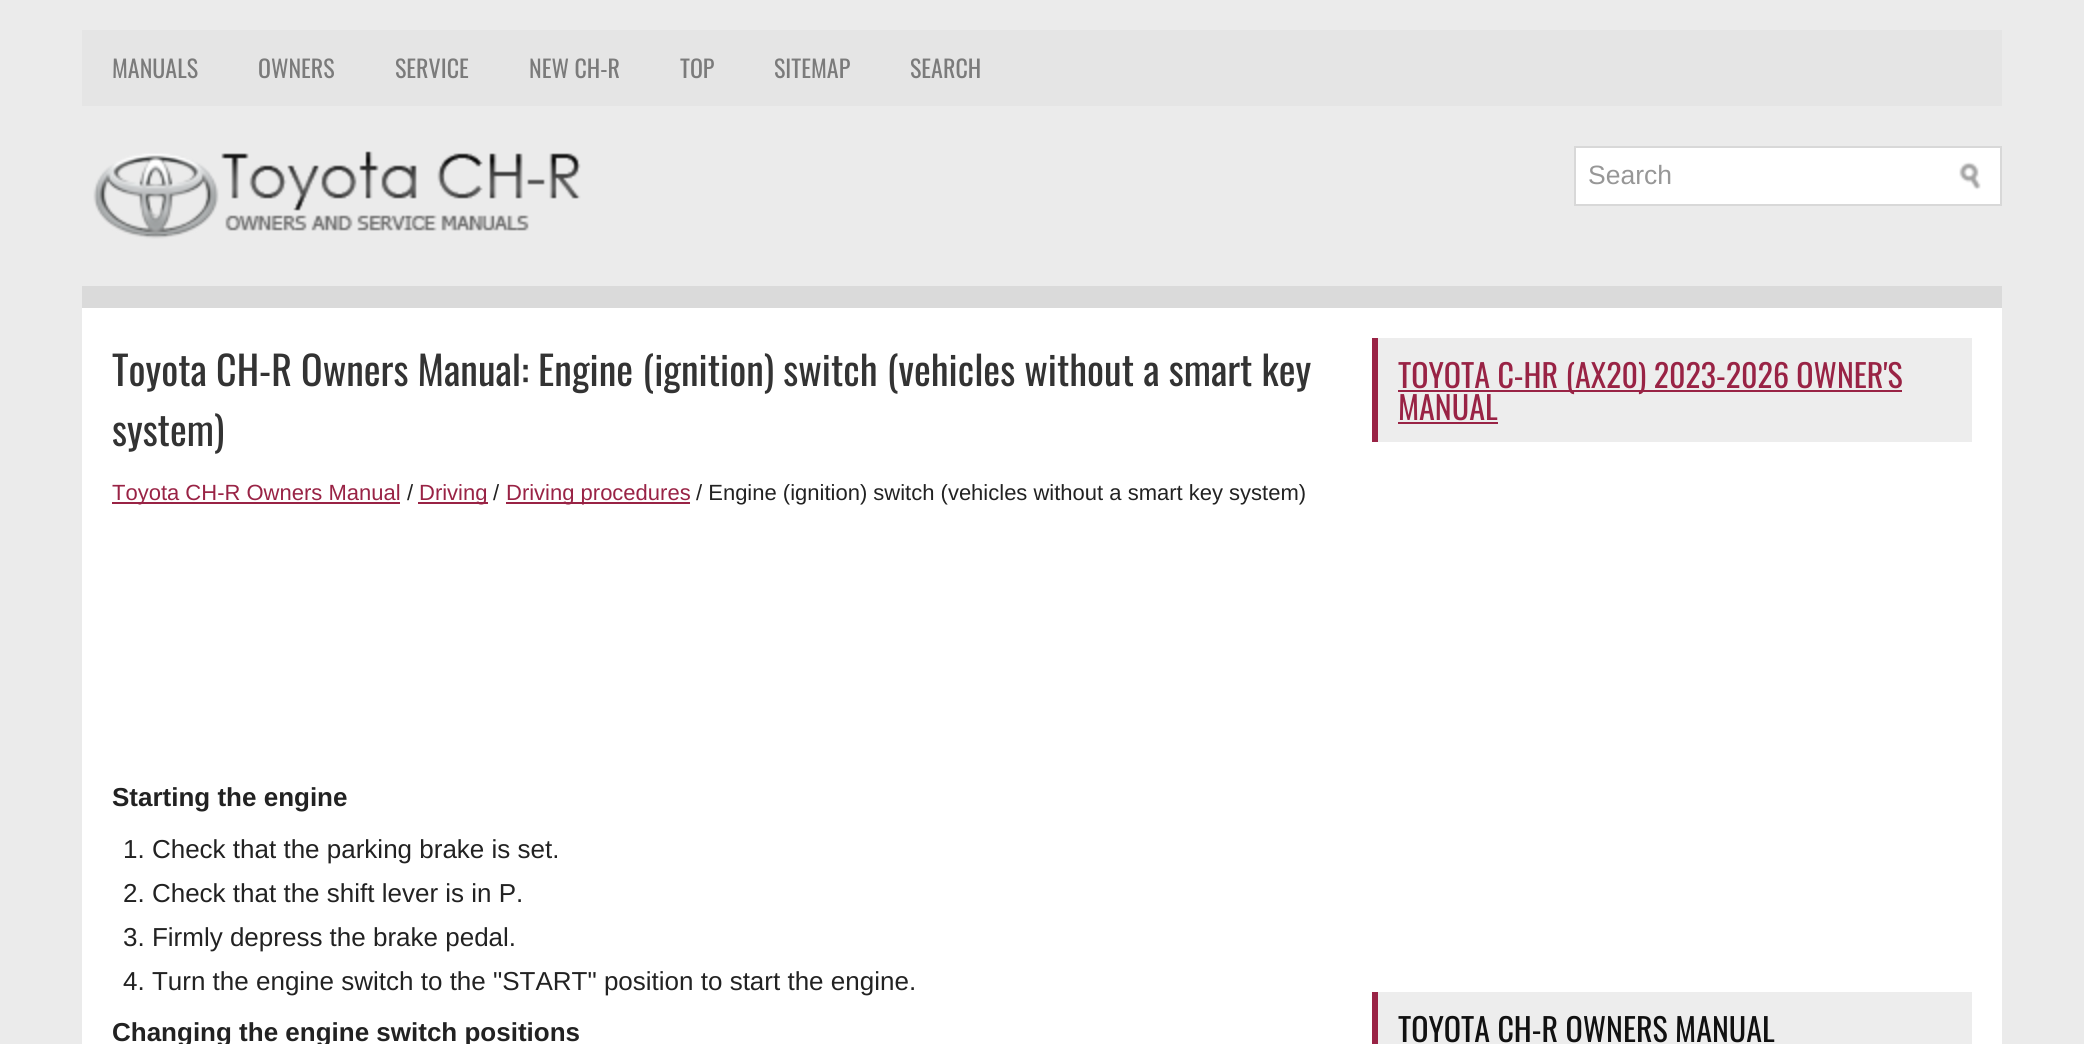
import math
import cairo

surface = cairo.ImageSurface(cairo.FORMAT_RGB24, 2084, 1044)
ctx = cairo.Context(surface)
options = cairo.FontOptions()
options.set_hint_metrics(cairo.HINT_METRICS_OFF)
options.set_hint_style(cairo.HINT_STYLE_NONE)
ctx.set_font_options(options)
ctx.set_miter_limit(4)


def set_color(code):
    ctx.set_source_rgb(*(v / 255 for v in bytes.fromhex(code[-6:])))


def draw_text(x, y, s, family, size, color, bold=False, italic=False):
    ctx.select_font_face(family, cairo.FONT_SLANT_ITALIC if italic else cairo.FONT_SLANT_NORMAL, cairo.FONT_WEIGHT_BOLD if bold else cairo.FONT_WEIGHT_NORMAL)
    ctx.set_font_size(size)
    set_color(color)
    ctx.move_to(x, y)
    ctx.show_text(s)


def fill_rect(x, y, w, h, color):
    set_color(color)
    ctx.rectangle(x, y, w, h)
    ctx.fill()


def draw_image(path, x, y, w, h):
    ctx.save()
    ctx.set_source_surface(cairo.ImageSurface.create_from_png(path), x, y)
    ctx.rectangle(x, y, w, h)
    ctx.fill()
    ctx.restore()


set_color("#ebebeb")
ctx.paint()
fill_rect(82, 30, 1920, 76, "#e5e5e5")
draw_text(112, 78, "MANUALS", "Oswald", 24, "#7b7b7b")
draw_text(258, 78, "OWNERS", "Oswald", 24, "#7b7b7b")
draw_text(395, 78, "SERVICE", "Oswald", 24, "#7b7b7b")
draw_text(529, 78, "NEW CH-R", "Oswald", 24, "#7b7b7b")
draw_text(680, 78, "TOP", "Oswald", 24, "#7b7b7b")
draw_text(774, 78, "SITEMAP", "Oswald", 24, "#7b7b7b")
draw_text(910, 78, "SEARCH", "Oswald", 24, "#7b7b7b")
draw_image("assets/img1.png", 93, 151, 488, 88)
set_color("#ffffff")
ctx.rectangle(1575, 147, 426, 58)
ctx.fill_preserve()
set_color("#d8d8d8")
ctx.stroke()
draw_text(1588, 184, "Search", "Liberation Sans", 26.5, "#979797")
draw_image("assets/img2.png", 1959, 162, 22, 28)
fill_rect(82, 286, 1920, 22, "#dadada")
fill_rect(82, 308, 1920, 736, "#ffffff")
draw_text(112, 386, "Toyota CH-R Owners Manual: Engine (ignition) switch (vehicles without a smart key", "Oswald", 40, "#333333")
draw_text(112, 446, "system)", "Oswald", 40, "#333333")
fill_rect(112, 502, 288, 2, "#992345")
draw_text(112, 500, "Toyota CH-R Owners Manual", "Liberation Sans", 22, "#992345")
draw_text(407, 500, "/", "Liberation Sans", 22, "#222222")
fill_rect(418, 502, 70, 2, "#992345")
draw_text(419, 500, "Driving", "Liberation Sans", 22, "#992345")
draw_text(493, 500, "/", "Liberation Sans", 22, "#222222")
fill_rect(506, 502, 184, 2, "#992345")
draw_text(506, 500, "Driving procedures", "Liberation Sans", 22, "#992345")
draw_text(696, 500, "/ Engine (ignition) switch (vehicles without a smart key system)", "Liberation Sans", 22, "#222222")
draw_text(112, 806, "Starting the engine", "Liberation Sans", 26, "#222222", bold=True)
draw_text(123, 858, "1. Check that the parking brake is set.", "Liberation Sans", 26, "#222222")
draw_text(123, 902, "2. Check that the shift lever is in P.", "Liberation Sans", 26, "#222222")
draw_text(123, 946, "3. Firmly depress the brake pedal.", "Liberation Sans", 26, "#222222")
draw_text(123, 990, "4. Turn the engine switch to the \"START\" position to start the engine.", "Liberation Sans", 26, "#222222")
draw_text(112, 1041, "Changing the engine switch positions", "Liberation Sans", 26, "#222222", bold=True)
fill_rect(1378, 338, 594, 104, "#ededed")
fill_rect(1372, 338, 6, 104, "#992345")
fill_rect(1398, 390, 504, 2, "#992345")
draw_text(1398, 388, "TOYOTA C-HR (AX20) 2023-2026 OWNER'S", "Oswald", 32, "#992345")
draw_text(1398, 420, "MANUAL", "Oswald", 32, "#992345")
fill_rect(1398, 422, 100, 2, "#992345")
fill_rect(1378, 992, 594, 52, "#ededed")
fill_rect(1372, 992, 6, 52, "#992345")
draw_text(1398, 1042, "TOYOTA CH-R OWNERS MANUAL", "Oswald", 32, "#111111")
surface.write_to_png("output.png")
